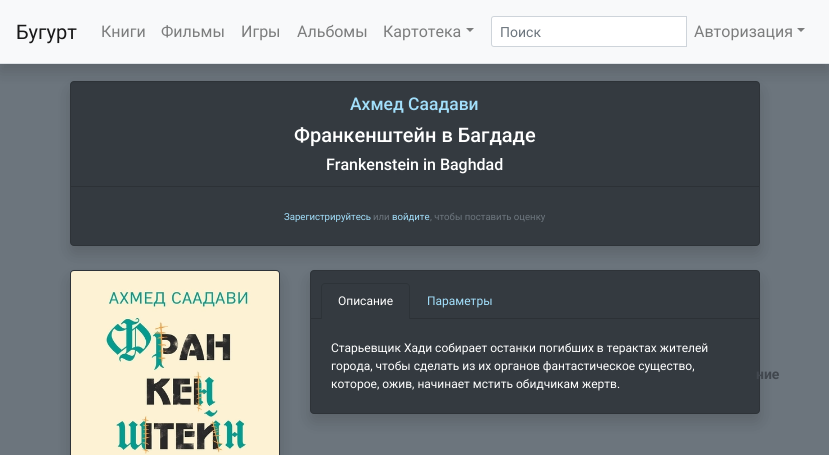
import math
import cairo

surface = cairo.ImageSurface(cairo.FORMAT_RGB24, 829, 455)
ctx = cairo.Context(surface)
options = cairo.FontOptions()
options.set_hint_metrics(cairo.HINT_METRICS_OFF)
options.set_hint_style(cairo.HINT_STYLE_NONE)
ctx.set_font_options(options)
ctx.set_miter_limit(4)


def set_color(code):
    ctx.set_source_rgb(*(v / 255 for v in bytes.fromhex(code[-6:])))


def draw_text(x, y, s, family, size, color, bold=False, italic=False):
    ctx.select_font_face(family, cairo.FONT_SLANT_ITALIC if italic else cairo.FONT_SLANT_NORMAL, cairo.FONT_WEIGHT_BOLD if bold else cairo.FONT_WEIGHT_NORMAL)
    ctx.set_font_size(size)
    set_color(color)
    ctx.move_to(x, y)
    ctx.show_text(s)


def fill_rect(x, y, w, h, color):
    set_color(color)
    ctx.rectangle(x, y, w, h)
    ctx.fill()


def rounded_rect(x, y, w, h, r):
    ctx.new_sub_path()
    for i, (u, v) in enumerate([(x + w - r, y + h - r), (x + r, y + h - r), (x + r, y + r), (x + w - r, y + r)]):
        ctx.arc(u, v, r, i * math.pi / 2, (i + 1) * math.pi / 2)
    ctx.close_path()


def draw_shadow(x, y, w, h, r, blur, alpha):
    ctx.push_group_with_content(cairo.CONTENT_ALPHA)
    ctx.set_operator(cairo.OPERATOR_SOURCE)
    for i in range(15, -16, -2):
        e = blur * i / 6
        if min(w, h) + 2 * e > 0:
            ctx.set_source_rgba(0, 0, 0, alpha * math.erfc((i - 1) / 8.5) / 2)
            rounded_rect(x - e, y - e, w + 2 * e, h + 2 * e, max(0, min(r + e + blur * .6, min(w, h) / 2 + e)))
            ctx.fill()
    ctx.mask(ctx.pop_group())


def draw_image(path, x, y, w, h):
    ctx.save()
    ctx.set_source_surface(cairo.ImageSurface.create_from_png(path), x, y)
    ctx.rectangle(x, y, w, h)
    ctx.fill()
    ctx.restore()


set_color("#6c757d")
ctx.paint()
set_color("#000000")
draw_shadow(70, 89, 690, 165, 4, 8, 0.15)
set_color("#343a40")
rounded_rect(70, 81, 690, 165, 4)
ctx.fill()
rounded_rect(70.5, 81.5, 689, 164, 3.5)
ctx.set_source_rgba(0, 0, 0, 0.12)
ctx.set_line_width(1)
ctx.stroke()
set_color("#000000")
draw_shadow(0, 8, 829, 64, 0, 8, 0.15)
fill_rect(0, 0, 829, 63, "#f8f9fa")
fill_rect(0, 63, 829, 1, "#dee2e6")
draw_text(16, 39, "Бугурт", "Roboto", 20, "#191919")
draw_text(101, 37, "Книги", "Roboto", 16, "#7c7d7d")
draw_text(161, 37, "Фильмы", "Roboto", 16, "#7c7d7d")
draw_text(241, 37, "Игры", "Roboto", 16, "#7c7d7d")
draw_text(297, 37, "Альбомы", "Roboto", 16, "#7c7d7d")
draw_text(383, 37, "Картотека", "Roboto", 16, "#7c7d7d")
ctx.new_path()
ctx.move_to(466, 28)
ctx.line_to(474, 28)
ctx.line_to(470, 32)
ctx.close_path()
ctx.fill()
set_color("#ffffff")
ctx.new_path()
ctx.move_to(494, 16.5)
ctx.line_to(686.5, 16.5)
ctx.line_to(686.5, 46.5)
ctx.line_to(494, 46.5)
ctx.curve_to(492.5, 46.5, 491.5, 45.5, 491.5, 44)
ctx.line_to(491.5, 19)
ctx.curve_to(491.5, 17.5, 492.5, 16.5, 494, 16.5)
ctx.close_path()
ctx.fill_preserve()
set_color("#ced4da")
ctx.stroke()
draw_text(500, 37, "Поиск", "Roboto", 14, "#6c757d")
draw_text(694, 37, "Авторизация", "Roboto", 16, "#7c7d7d")
ctx.new_path()
ctx.move_to(797, 28)
ctx.line_to(805, 28)
ctx.line_to(801, 32)
ctx.close_path()
ctx.fill()
fill_rect(71, 186, 688, 1, "#2c3136")
draw_text(350, 110, "Ахмед Саадави", "Roboto Medium", 17.5, "#a2dffb")
draw_text(294, 142, "Франкенштейн в Багдаде", "Roboto Medium", 20, "#ffffff")
draw_text(326, 170, "Frankenstein in Baghdad", "Roboto Medium", 16, "#ffffff")
draw_text(284, 220, "Зарегистрируйтесь", "Roboto", 9.6, "#a2dffb")
draw_text(373, 220, "или", "Roboto", 9.6, "#6c757d")
draw_text(392, 220, "войдите", "Roboto", 9.6, "#a2dffb")
draw_text(430, 220, ", чтобы поставить оценку", "Roboto", 9.6, "#6c757d")
set_color("#000000")
draw_shadow(70, 278, 210, 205, 4, 8, 0.15)
set_color("#343a40")
rounded_rect(70, 270, 210, 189, 4)
ctx.fill()
rounded_rect(70.5, 270.5, 209, 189, 3.5)
ctx.set_source_rgba(0, 0, 0, 0.12)
ctx.stroke()
draw_image("assets/img1.png", 71, 271, 208, 184)
set_color("#000000")
draw_shadow(310, 278, 450, 144, 4, 8, 0.15)
set_color("#343a40")
rounded_rect(310, 270, 450, 144, 4)
ctx.fill()
rounded_rect(310.5, 270.5, 449, 143, 3.5)
ctx.set_source_rgba(0, 0, 0, 0.12)
ctx.stroke()
fill_rect(311, 318, 448, 1, "#2c3136")
set_color("#343a40")
ctx.new_path()
ctx.move_to(325, 283)
ctx.line_to(406, 283)
ctx.curve_to(408, 283, 410, 285, 410, 287)
ctx.line_to(410, 319)
ctx.line_to(321, 319)
ctx.line_to(321, 287)
ctx.curve_to(321, 285, 323, 283, 325, 283)
ctx.close_path()
ctx.fill()
set_color("#2d3338")
ctx.set_fill_rule(cairo.FILL_RULE_EVEN_ODD)
ctx.new_path()
ctx.move_to(325, 283)
ctx.line_to(406, 283)
ctx.curve_to(408, 283, 410, 285, 410, 287)
ctx.line_to(410, 319)
ctx.line_to(321, 319)
ctx.line_to(321, 287)
ctx.curve_to(321, 285, 323, 283, 325, 283)
ctx.close_path()
ctx.move_to(325, 284)
ctx.line_to(406, 284)
ctx.curve_to(408, 284, 409, 285, 409, 287)
ctx.line_to(409, 319)
ctx.line_to(322, 319)
ctx.line_to(322, 287)
ctx.curve_to(322, 285, 323, 284, 325, 284)
ctx.close_path()
ctx.fill()
draw_text(338, 305, "Описание", "Roboto", 12, "#ffffff")
draw_text(427, 305, "Параметры", "Roboto", 12, "#a2dffb")
draw_text(331, 352, "Старьевщик Хади собирает останки погибших в терактах жителей", "Roboto", 12, "#ffffff")
draw_text(331, 370, "города, чтобы сделать из их органов фантастическое существо,", "Roboto", 12, "#ffffff")
draw_text(331, 388, "которое, ожив, начинает мстить обидчикам жертв.", "Roboto", 12, "#ffffff")
draw_text(756, 379, "ние", "Roboto", 14, "#41474e", bold=True)
surface.write_to_png("output.png")
